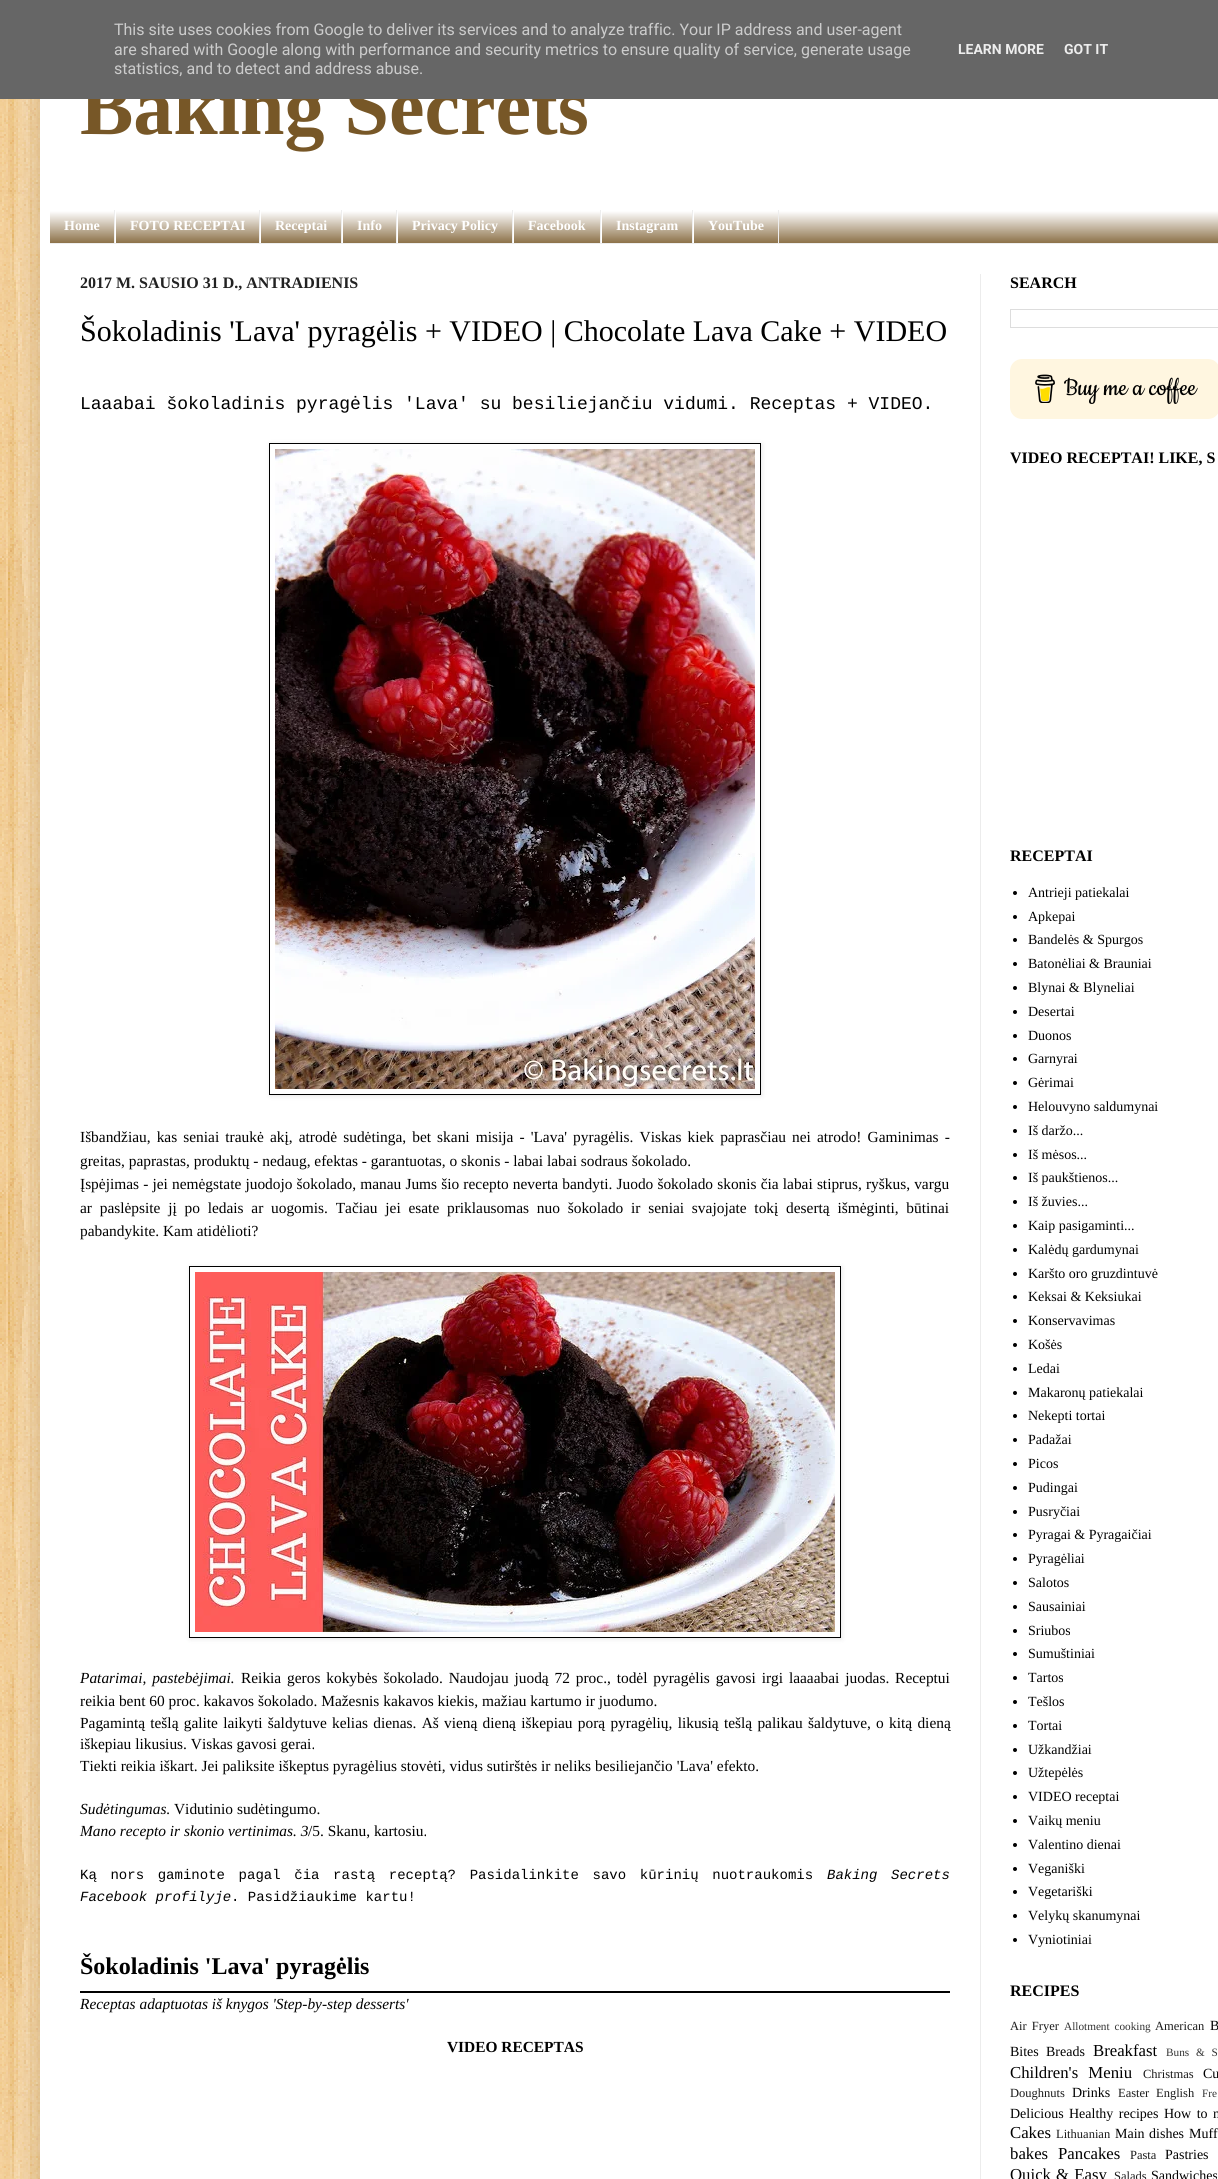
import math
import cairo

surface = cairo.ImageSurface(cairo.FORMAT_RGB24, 1218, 2179)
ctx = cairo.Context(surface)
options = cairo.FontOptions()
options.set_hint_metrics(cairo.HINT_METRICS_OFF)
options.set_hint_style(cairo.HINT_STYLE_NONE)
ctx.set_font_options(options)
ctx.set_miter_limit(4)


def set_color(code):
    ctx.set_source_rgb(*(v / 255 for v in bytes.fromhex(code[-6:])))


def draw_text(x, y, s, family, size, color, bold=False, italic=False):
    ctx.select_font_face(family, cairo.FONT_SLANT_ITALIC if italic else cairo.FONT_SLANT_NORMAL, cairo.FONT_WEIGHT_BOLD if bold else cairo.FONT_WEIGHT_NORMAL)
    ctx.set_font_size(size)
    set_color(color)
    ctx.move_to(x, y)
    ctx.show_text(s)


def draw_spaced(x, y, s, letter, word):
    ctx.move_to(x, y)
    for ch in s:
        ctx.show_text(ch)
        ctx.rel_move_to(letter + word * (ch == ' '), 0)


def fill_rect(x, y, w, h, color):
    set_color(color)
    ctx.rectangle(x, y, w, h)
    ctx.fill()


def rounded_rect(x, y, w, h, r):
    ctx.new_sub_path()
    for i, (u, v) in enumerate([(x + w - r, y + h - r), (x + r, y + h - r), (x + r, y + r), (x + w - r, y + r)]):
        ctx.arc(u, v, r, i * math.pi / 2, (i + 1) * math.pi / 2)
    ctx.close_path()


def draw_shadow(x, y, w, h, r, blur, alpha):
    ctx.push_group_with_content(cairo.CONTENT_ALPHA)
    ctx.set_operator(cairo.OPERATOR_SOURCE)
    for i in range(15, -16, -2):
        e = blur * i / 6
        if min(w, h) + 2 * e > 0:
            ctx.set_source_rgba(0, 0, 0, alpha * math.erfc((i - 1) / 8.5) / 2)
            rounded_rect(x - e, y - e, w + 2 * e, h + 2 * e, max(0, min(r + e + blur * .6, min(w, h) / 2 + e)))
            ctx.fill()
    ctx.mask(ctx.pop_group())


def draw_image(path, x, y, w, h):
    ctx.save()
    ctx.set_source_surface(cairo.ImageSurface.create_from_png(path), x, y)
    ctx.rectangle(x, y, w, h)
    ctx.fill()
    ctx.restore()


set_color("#ffffff")
ctx.paint()
draw_image("assets/img1.png", 0, 400, 40, 1779)
draw_image("assets/img2.png", 0, 99, 40, 301)
set_color("#000000")
draw_shadow(40, 30, 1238, 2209, 0, 20, 0.15)
fill_rect(40, 99, 1178, 2080, "#ffffff")
draw_text(80, 134, "Baking Secrets", "Liberation Serif", 80, "#775727", bold=True)
fill_rect(0, 0, 1218, 99, "#666666")
draw_text(114, 35, "This site uses cookies from Google to deliver its services and to analyze traffic. Your IP address and user-agent", "Roboto", 16, "#cccccc")
draw_text(114, 55, "are shared with Google along with performance and security metrics to ensure quality of service, generate usage", "Roboto", 16, "#cccccc")
draw_text(114, 74, "statistics, and to detect and address abuse.", "Roboto", 16, "#cccccc")
draw_text(958, 54, "LEARN MORE", "Roboto", 14, "#eeeeee", bold=True)
draw_text(1064, 54, "GOT IT", "Roboto", 14, "#eeeeee", bold=True)
fill_rect(50, 211, 1168, 32, "#775727")
draw_image("assets/img3.png", 50, 210, 1168, 33)
fill_rect(50, 243, 1168, 1, "#eeeeee")
fill_rect(114, 210, 1, 33, "#eeeeee")
draw_text(64, 230, "Home", "Liberation Serif", 14, "#ffffff", bold=True)
fill_rect(259, 210, 1, 33, "#eeeeee")
fill_rect(115, 210, 1, 33, "#ffffff")
draw_text(130, 230, "FOTO RECEPTAI", "Liberation Serif", 14, "#ffffff", bold=True)
fill_rect(341, 210, 1, 33, "#eeeeee")
fill_rect(260, 210, 1, 33, "#ffffff")
draw_text(275, 230, "Receptai", "Liberation Serif", 14, "#ffffff", bold=True)
fill_rect(396, 210, 1, 33, "#eeeeee")
fill_rect(342, 210, 1, 33, "#ffffff")
draw_text(357, 230, "Info", "Liberation Serif", 14, "#ffffff", bold=True)
fill_rect(512, 210, 1, 33, "#eeeeee")
fill_rect(397, 210, 1, 33, "#ffffff")
draw_text(412, 230, "Privacy Policy", "Liberation Serif", 14, "#ffffff", bold=True)
fill_rect(600, 210, 1, 33, "#eeeeee")
fill_rect(513, 210, 1, 33, "#ffffff")
draw_text(528, 230, "Facebook", "Liberation Serif", 14, "#ffffff", bold=True)
fill_rect(692, 210, 1, 33, "#eeeeee")
fill_rect(601, 210, 1, 33, "#ffffff")
draw_text(616, 230, "Instagram", "Liberation Serif", 14, "#ffffff", bold=True)
fill_rect(778, 210, 1, 33, "#eeeeee")
fill_rect(693, 210, 1, 33, "#ffffff")
draw_text(708, 230, "YouTube", "Liberation Serif", 14, "#ffffff", bold=True)
fill_rect(980, 274, 1, 1905, "#ececec")
draw_text(80, 288, "2017 M. SAUSIO 31 D., ANTRADIENIS", "Liberation Serif", 16, "#222222", bold=True)
draw_text(80, 341, "Šokoladinis 'Lava' pyragėlis + VIDEO | Chocolate Lava Cake + VIDEO", "Liberation Serif", 30, "#000000")
draw_text(80, 409, "Laaabai šokoladinis pyragėlis 'Lava' su besiliejančiu vidumi. Receptas + VIDEO.", "Liberation Mono", 18, "#000000")
ctx.save()
ctx.set_fill_rule(cairo.FILL_RULE_EVEN_ODD)
ctx.new_path()
ctx.move_to(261, 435)
ctx.line_to(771, 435)
ctx.line_to(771, 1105)
ctx.line_to(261, 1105)
ctx.close_path()
ctx.move_to(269, 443)
ctx.line_to(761, 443)
ctx.line_to(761, 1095)
ctx.line_to(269, 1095)
ctx.close_path()
ctx.clip()
set_color("#000000")
draw_shadow(270, 444, 492, 652, 0, 2.5, 0.1)
ctx.restore()
ctx.rectangle(269.5, 443.5, 491, 651)
ctx.set_line_width(1)
ctx.stroke()
draw_image("assets/img4.png", 275, 449, 480, 640)
ctx.select_font_face("Liberation Serif")
ctx.set_font_size(15.4)
draw_spaced(80, 1142, "Išbandžiau, kas seniai traukė akį, atrodė sudėtinga, bet skani misija - 'Lava' pyragėlis. Viskas kiek paprasčiau nei atrodo! Gaminimas -", 0, 2.25)
draw_text(80, 1166, "greitas, paprastas, produktų - nedaug, efektas - garantuotas, o skonis - labai labai sodraus šokolado.", "Liberation Serif", 15.4, "#000000")
draw_spaced(80, 1189, "Įspėjimas - jei nemėgstate juodojo šokolado, manau Jums šio recepto neverta bandyti. Juodo šokolado skonis čia labai stiprus, ryškus, vargu", 0, 0.3)
draw_spaced(80, 1213, "ar paslėpsite jį po ledais ar uogomis. Tačiau jei esate priklausomas nuo šokolado ir seniai svajojate tokį desertą išmėginti, būtinai", 0, 3.9)
draw_text(80, 1236, "pabandykite. Kam atidėlioti?", "Liberation Serif", 15.4, "#000000")
ctx.save()
ctx.set_fill_rule(cairo.FILL_RULE_EVEN_ODD)
ctx.new_path()
ctx.move_to(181, 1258)
ctx.line_to(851, 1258)
ctx.line_to(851, 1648)
ctx.line_to(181, 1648)
ctx.close_path()
ctx.move_to(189, 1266)
ctx.line_to(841, 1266)
ctx.line_to(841, 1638)
ctx.line_to(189, 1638)
ctx.close_path()
ctx.clip()
set_color("#000000")
draw_shadow(190, 1267, 652, 372, 0, 2.5, 0.1)
ctx.restore()
ctx.rectangle(189.5, 1266.5, 651, 371)
ctx.stroke()
draw_image("assets/img5.png", 195, 1272, 640, 360)
ctx.select_font_face("Liberation Serif", cairo.FONT_SLANT_ITALIC)
draw_spaced(80, 1683, "Patarimai, pastebėjimai.", 0, 2)
ctx.select_font_face("Liberation Serif")
draw_spaced(241, 1683, "Reikia geros kokybės šokolado. Naudojau juodą 72 proc., todėl pyragėlis gavosi irgi laaaabai juodas. Receptui", 0, 2)
draw_text(80, 1706, "reikia bent 60 proc. kakavos šokolado. Mažesnis kakavos kiekis, mažiau kartumo ir juodumo.", "Liberation Serif", 15.4, "#000000")
draw_spaced(80, 1728, "Pagamintą tešlą galite laikyti šaldytuve kelias dienas. Aš vieną dieną iškepiau porą pyragėlių, likusią tešlą palikau šaldytuve, o kitą dieną", 0, 1.4)
draw_text(80, 1749, "iškepiau likusius. Viskas gavosi gerai.", "Liberation Serif", 15.4, "#000000")
draw_text(80, 1771, "Tiekti reikia iškart. Jei paliksite iškeptus pyragėlius stovėti, vidus sutirštės ir neliks besiliejančio 'Lava' efekto.", "Liberation Serif", 15.4, "#000000")
draw_text(80, 1814, "Sudėtingumas.", "Liberation Serif", 15.4, "#000000", italic=True)
draw_text(174, 1814, "Vidutinio sudėtingumo.", "Liberation Serif", 15.4, "#000000")
draw_text(80, 1836, "Mano recepto ir skonio vertinimas. 3", "Liberation Serif", 15.4, "#000000", italic=True)
draw_text(308, 1836, "/5. Skanu, kartosiu.", "Liberation Serif", 15.4, "#000000")
ctx.select_font_face("Liberation Mono")
ctx.set_font_size(14)
draw_spaced(80, 1879, "Ką nors gaminote pagal čia rastą receptą? Pasidalinkite savo kūrinių nuotraukomis", 0, 5.25)
ctx.select_font_face("Liberation Mono", cairo.FONT_SLANT_ITALIC)
draw_spaced(827, 1879, "Baking Secrets", 0, 5.25)
draw_text(80, 1901, "Facebook profilyje", "Liberation Mono", 14, "#000000", italic=True)
draw_text(231, 1901, ". Pasidžiaukime kartu!", "Liberation Mono", 14, "#000000")
fill_rect(80, 1991, 870, 2, "#000000")
draw_text(80, 1974, "Šokoladinis 'Lava' pyragėlis", "Liberation Serif", 24, "#000000", bold=True)
draw_text(80, 2009, "Receptas adaptuotas iš knygos 'Step-by-step desserts'", "Liberation Serif", 15.4, "#000000", italic=True)
draw_text(447, 2052, "VIDEO RECEPTAS", "Liberation Serif", 15.4, "#000000", bold=True)
draw_text(1010, 288, "SEARCH", "Liberation Serif", 16, "#000000", bold=True)
ctx.rectangle(1010.5, 309.5, 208, 18)
set_color("#dddddd")
ctx.stroke()
set_color("#fff6e0")
rounded_rect(1010, 359, 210, 60, 12)
ctx.fill()
draw_image("assets/img6.png", 1035, 374, 20, 29)
draw_text(1064, 395, "Buy me a coffee", "Cookie", 28, "#000000")
draw_text(1010, 463, "VIDEO RECEPTAI! LIKE, S", "Liberation Serif", 16, "#000000", bold=True)
draw_text(1010, 861, "RECEPTAI", "Liberation Serif", 16, "#000000", bold=True)
ctx.new_path()
ctx.arc(1015, 893, 2, 0, 2 * math.pi)
ctx.fill()
draw_text(1028, 897, "Antrieji patiekalai", "Liberation Serif", 14, "#000000")
ctx.new_path()
ctx.arc(1015, 917, 2, 0, 2 * math.pi)
ctx.fill()
draw_text(1028, 921, "Apkepai", "Liberation Serif", 14, "#000000")
ctx.new_path()
ctx.arc(1015, 940, 2, 0, 2 * math.pi)
ctx.fill()
draw_text(1028, 944, "Bandelės & Spurgos", "Liberation Serif", 14, "#000000")
ctx.new_path()
ctx.arc(1015, 964, 2, 0, 2 * math.pi)
ctx.fill()
draw_text(1028, 968, "Batonėliai & Brauniai", "Liberation Serif", 14, "#000000")
ctx.new_path()
ctx.arc(1015, 988, 2, 0, 2 * math.pi)
ctx.fill()
draw_text(1028, 992, "Blynai & Blyneliai", "Liberation Serif", 14, "#000000")
ctx.new_path()
ctx.arc(1015, 1012, 2, 0, 2 * math.pi)
ctx.fill()
draw_text(1028, 1016, "Desertai", "Liberation Serif", 14, "#000000")
ctx.new_path()
ctx.arc(1015, 1036, 2, 0, 2 * math.pi)
ctx.fill()
draw_text(1028, 1040, "Duonos", "Liberation Serif", 14, "#000000")
ctx.new_path()
ctx.arc(1015, 1059, 2, 0, 2 * math.pi)
ctx.fill()
draw_text(1028, 1063, "Garnyrai", "Liberation Serif", 14, "#000000")
ctx.new_path()
ctx.arc(1015, 1083, 2, 0, 2 * math.pi)
ctx.fill()
draw_text(1028, 1087, "Gėrimai", "Liberation Serif", 14, "#000000")
ctx.new_path()
ctx.arc(1015, 1107, 2, 0, 2 * math.pi)
ctx.fill()
draw_text(1028, 1111, "Helouvyno saldumynai", "Liberation Serif", 14, "#000000")
ctx.new_path()
ctx.arc(1015, 1131, 2, 0, 2 * math.pi)
ctx.fill()
draw_text(1028, 1135, "Iš daržo...", "Liberation Serif", 14, "#000000")
ctx.new_path()
ctx.arc(1015, 1155, 2, 0, 2 * math.pi)
ctx.fill()
draw_text(1028, 1159, "Iš mėsos...", "Liberation Serif", 14, "#000000")
ctx.new_path()
ctx.arc(1015, 1178, 2, 0, 2 * math.pi)
ctx.fill()
draw_text(1028, 1182, "Iš paukštienos...", "Liberation Serif", 14, "#000000")
ctx.new_path()
ctx.arc(1015, 1202, 2, 0, 2 * math.pi)
ctx.fill()
draw_text(1028, 1206, "Iš žuvies...", "Liberation Serif", 14, "#000000")
ctx.new_path()
ctx.arc(1015, 1226, 2, 0, 2 * math.pi)
ctx.fill()
draw_text(1028, 1230, "Kaip pasigaminti...", "Liberation Serif", 14, "#000000")
ctx.new_path()
ctx.arc(1015, 1250, 2, 0, 2 * math.pi)
ctx.fill()
draw_text(1028, 1254, "Kalėdų gardumynai", "Liberation Serif", 14, "#000000")
ctx.new_path()
ctx.arc(1015, 1274, 2, 0, 2 * math.pi)
ctx.fill()
draw_text(1028, 1278, "Karšto oro gruzdintuvė", "Liberation Serif", 14, "#000000")
ctx.new_path()
ctx.arc(1015, 1297, 2, 0, 2 * math.pi)
ctx.fill()
draw_text(1028, 1301, "Keksai & Keksiukai", "Liberation Serif", 14, "#000000")
ctx.new_path()
ctx.arc(1015, 1321, 2, 0, 2 * math.pi)
ctx.fill()
draw_text(1028, 1325, "Konservavimas", "Liberation Serif", 14, "#000000")
ctx.new_path()
ctx.arc(1015, 1345, 2, 0, 2 * math.pi)
ctx.fill()
draw_text(1028, 1349, "Košės", "Liberation Serif", 14, "#000000")
ctx.new_path()
ctx.arc(1015, 1369, 2, 0, 2 * math.pi)
ctx.fill()
draw_text(1028, 1373, "Ledai", "Liberation Serif", 14, "#000000")
ctx.new_path()
ctx.arc(1015, 1393, 2, 0, 2 * math.pi)
ctx.fill()
draw_text(1028, 1397, "Makaronų patiekalai", "Liberation Serif", 14, "#000000")
ctx.new_path()
ctx.arc(1015, 1416, 2, 0, 2 * math.pi)
ctx.fill()
draw_text(1028, 1420, "Nekepti tortai", "Liberation Serif", 14, "#000000")
ctx.new_path()
ctx.arc(1015, 1440, 2, 0, 2 * math.pi)
ctx.fill()
draw_text(1028, 1444, "Padažai", "Liberation Serif", 14, "#000000")
ctx.new_path()
ctx.arc(1015, 1464, 2, 0, 2 * math.pi)
ctx.fill()
draw_text(1028, 1468, "Picos", "Liberation Serif", 14, "#000000")
ctx.new_path()
ctx.arc(1015, 1488, 2, 0, 2 * math.pi)
ctx.fill()
draw_text(1028, 1492, "Pudingai", "Liberation Serif", 14, "#000000")
ctx.new_path()
ctx.arc(1015, 1512, 2, 0, 2 * math.pi)
ctx.fill()
draw_text(1028, 1516, "Pusryčiai", "Liberation Serif", 14, "#000000")
ctx.new_path()
ctx.arc(1015, 1535, 2, 0, 2 * math.pi)
ctx.fill()
draw_text(1028, 1539, "Pyragai & Pyragaičiai", "Liberation Serif", 14, "#000000")
ctx.new_path()
ctx.arc(1015, 1559, 2, 0, 2 * math.pi)
ctx.fill()
draw_text(1028, 1563, "Pyragėliai", "Liberation Serif", 14, "#000000")
ctx.new_path()
ctx.arc(1015, 1583, 2, 0, 2 * math.pi)
ctx.fill()
draw_text(1028, 1587, "Salotos", "Liberation Serif", 14, "#000000")
ctx.new_path()
ctx.arc(1015, 1607, 2, 0, 2 * math.pi)
ctx.fill()
draw_text(1028, 1611, "Sausainiai", "Liberation Serif", 14, "#000000")
ctx.new_path()
ctx.arc(1015, 1631, 2, 0, 2 * math.pi)
ctx.fill()
draw_text(1028, 1635, "Sriubos", "Liberation Serif", 14, "#000000")
ctx.new_path()
ctx.arc(1015, 1654, 2, 0, 2 * math.pi)
ctx.fill()
draw_text(1028, 1658, "Sumuštiniai", "Liberation Serif", 14, "#000000")
ctx.new_path()
ctx.arc(1015, 1678, 2, 0, 2 * math.pi)
ctx.fill()
draw_text(1028, 1682, "Tartos", "Liberation Serif", 14, "#000000")
ctx.new_path()
ctx.arc(1015, 1702, 2, 0, 2 * math.pi)
ctx.fill()
draw_text(1028, 1706, "Tešlos", "Liberation Serif", 14, "#000000")
ctx.new_path()
ctx.arc(1015, 1726, 2, 0, 2 * math.pi)
ctx.fill()
draw_text(1028, 1730, "Tortai", "Liberation Serif", 14, "#000000")
ctx.new_path()
ctx.arc(1015, 1750, 2, 0, 2 * math.pi)
ctx.fill()
draw_text(1028, 1754, "Užkandžiai", "Liberation Serif", 14, "#000000")
ctx.new_path()
ctx.arc(1015, 1773, 2, 0, 2 * math.pi)
ctx.fill()
draw_text(1028, 1777, "Užtepėlės", "Liberation Serif", 14, "#000000")
ctx.new_path()
ctx.arc(1015, 1797, 2, 0, 2 * math.pi)
ctx.fill()
draw_text(1028, 1801, "VIDEO receptai", "Liberation Serif", 14, "#000000")
ctx.new_path()
ctx.arc(1015, 1821, 2, 0, 2 * math.pi)
ctx.fill()
draw_text(1028, 1825, "Vaikų meniu", "Liberation Serif", 14, "#000000")
ctx.new_path()
ctx.arc(1015, 1845, 2, 0, 2 * math.pi)
ctx.fill()
draw_text(1028, 1849, "Valentino dienai", "Liberation Serif", 14, "#000000")
ctx.new_path()
ctx.arc(1015, 1869, 2, 0, 2 * math.pi)
ctx.fill()
draw_text(1028, 1873, "Veganiški", "Liberation Serif", 14, "#000000")
ctx.new_path()
ctx.arc(1015, 1892, 2, 0, 2 * math.pi)
ctx.fill()
draw_text(1028, 1896, "Vegetariški", "Liberation Serif", 14, "#000000")
ctx.new_path()
ctx.arc(1015, 1916, 2, 0, 2 * math.pi)
ctx.fill()
draw_text(1028, 1920, "Velykų skanumynai", "Liberation Serif", 14, "#000000")
ctx.new_path()
ctx.arc(1015, 1940, 2, 0, 2 * math.pi)
ctx.fill()
draw_text(1028, 1944, "Vyniotiniai", "Liberation Serif", 14, "#000000")
draw_text(1010, 1996, "RECIPES", "Liberation Serif", 16, "#000000", bold=True)
ctx.select_font_face("Liberation Serif")
ctx.set_font_size(12.5)
set_color("#1a1a1a")
draw_spaced(1010, 2030, "Air Fryer", 0, 2)
ctx.set_font_size(11.25)
set_color("#333333")
draw_spaced(1064, 2030, "Allotment cooking", 0, 2)
draw_text(1155, 2030, "American", "Liberation Serif", 12.5, "#1a1a1a")
ctx.set_font_size(14)
set_color("#000000")
draw_spaced(1210, 2030, "B", 0, 2)
draw_text(1010, 2056, "Bites", "Liberation Serif", 14, "#000000")
draw_text(1046, 2056, "Breads", "Liberation Serif", 14, "#000000")
draw_text(1093, 2056, "Breakfast", "Liberation Serif", 16.75, "#000000")
ctx.set_font_size(11.25)
set_color("#333333")
draw_spaced(1166, 2056, "Buns & S", 0, 4)
ctx.set_font_size(16.75)
set_color("#000000")
draw_spaced(1010, 2078, "Children's Meniu", 0, 6)
draw_text(1143, 2078, "Christmas", "Liberation Serif", 12.5, "#1a1a1a")
ctx.set_font_size(14)
set_color("#000000")
draw_spaced(1203, 2078, "Cu", 0, 6)
draw_text(1010, 2097, "Doughnuts", "Liberation Serif", 12.5, "#1a1a1a")
draw_text(1072, 2097, "Drinks", "Liberation Serif", 14, "#000000")
draw_text(1118, 2097, "Easter", "Liberation Serif", 12.5, "#1a1a1a")
draw_text(1156, 2097, "English", "Liberation Serif", 12.5, "#1a1a1a")
draw_text(1202, 2097, "Fre", "Liberation Serif", 11.25, "#333333")
draw_text(1010, 2118, "Delicious", "Liberation Serif", 14, "#000000")
draw_spaced(1069, 2118, "Healthy recipes", 0, 2)
draw_spaced(1164, 2118, "How to m", 0, 2)
draw_text(1010, 2138, "Cakes", "Liberation Serif", 16.75, "#000000")
draw_text(1056, 2138, "Lithuanian", "Liberation Serif", 12.5, "#1a1a1a")
ctx.set_font_size(14)
set_color("#000000")
draw_spaced(1115, 2138, "Main dishes", 0, 1)
draw_text(1189, 2138, "Muff", "Liberation Serif", 14, "#000000")
draw_text(1010, 2159, "bakes", "Liberation Serif", 16.75, "#000000")
draw_text(1058, 2159, "Pancakes", "Liberation Serif", 16.75, "#000000")
draw_text(1130, 2159, "Pasta", "Liberation Serif", 12.5, "#1a1a1a")
draw_text(1165, 2159, "Pastries", "Liberation Serif", 14, "#000000")
ctx.set_font_size(16.75)
draw_spaced(1010, 2180, "Quick & Easy", 0, 1)
draw_text(1114, 2180, "Salads", "Liberation Serif", 12.5, "#1a1a1a")
draw_text(1151, 2180, "Sandwiches", "Liberation Serif", 14, "#000000")
surface.write_to_png("output.png")
